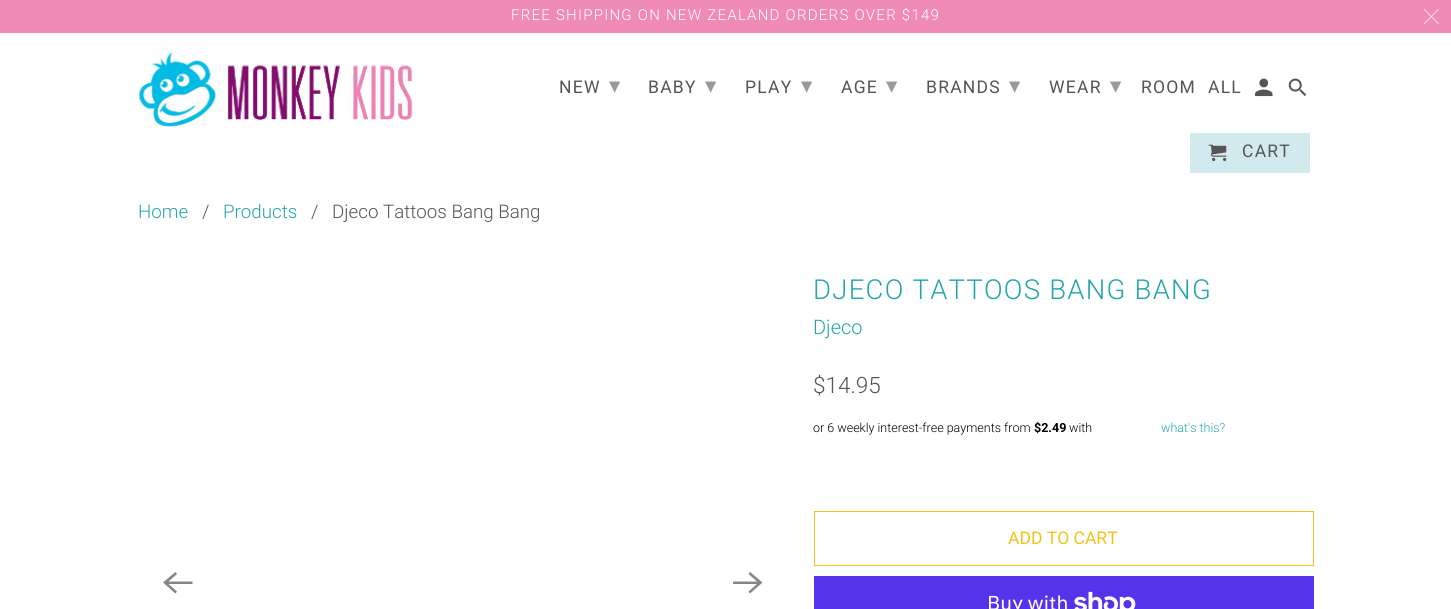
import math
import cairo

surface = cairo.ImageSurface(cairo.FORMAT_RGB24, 1451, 609)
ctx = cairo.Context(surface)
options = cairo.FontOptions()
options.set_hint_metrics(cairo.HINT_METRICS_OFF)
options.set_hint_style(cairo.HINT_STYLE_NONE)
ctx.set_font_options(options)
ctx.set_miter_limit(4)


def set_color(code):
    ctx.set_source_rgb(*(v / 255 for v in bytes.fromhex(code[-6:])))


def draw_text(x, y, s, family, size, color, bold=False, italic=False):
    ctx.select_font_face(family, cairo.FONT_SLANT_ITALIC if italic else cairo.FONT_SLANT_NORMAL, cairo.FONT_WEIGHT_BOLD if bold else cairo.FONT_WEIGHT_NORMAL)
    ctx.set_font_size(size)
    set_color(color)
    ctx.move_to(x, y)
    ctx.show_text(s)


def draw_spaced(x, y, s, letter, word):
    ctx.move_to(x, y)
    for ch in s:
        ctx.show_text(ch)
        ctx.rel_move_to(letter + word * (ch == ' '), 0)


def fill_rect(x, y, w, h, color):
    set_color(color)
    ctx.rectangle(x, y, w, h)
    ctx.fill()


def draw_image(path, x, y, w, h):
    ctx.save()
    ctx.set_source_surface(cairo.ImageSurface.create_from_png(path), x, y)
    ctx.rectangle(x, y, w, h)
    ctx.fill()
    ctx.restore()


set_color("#ffffff")
ctx.paint()
fill_rect(0, 0, 1451, 33, "#f08bb4")
ctx.select_font_face("Roboto Light")
ctx.set_font_size(15)
set_color("#ffffff")
draw_spaced(511, 20, "FREE SHIPPING ON NEW ZEALAND ORDERS OVER $149", 1.25, 0)
draw_image("assets/img1.png", 1423, 9, 16, 15)
draw_image("assets/img2.png", 138, 51, 275, 77)
ctx.select_font_face("Roboto")
ctx.set_font_size(17.5)
set_color("#555555")
draw_spaced(559, 93, "NEW", 1.25, 0)
ctx.select_font_face("DejaVu Sans")
ctx.set_font_size(22.5)
set_color("#999999")
draw_spaced(609, 93, "▾", 1.25, 0)
ctx.select_font_face("Roboto")
ctx.set_font_size(17.5)
set_color("#555555")
draw_spaced(648, 93, "BABY", 1.25, 0)
ctx.select_font_face("DejaVu Sans")
ctx.set_font_size(22.5)
set_color("#999999")
draw_spaced(705, 93, "▾", 1.25, 0)
ctx.select_font_face("Roboto")
ctx.set_font_size(17.5)
set_color("#555555")
draw_spaced(745, 93, "PLAY", 1.25, 0)
ctx.select_font_face("DejaVu Sans")
ctx.set_font_size(22.5)
set_color("#999999")
draw_spaced(801, 93, "▾", 1.25, 0)
ctx.select_font_face("Roboto")
ctx.set_font_size(17.5)
set_color("#555555")
draw_spaced(841, 93, "AGE", 1.25, 0)
ctx.select_font_face("DejaVu Sans")
ctx.set_font_size(22.5)
set_color("#999999")
draw_spaced(886, 93, "▾", 1.25, 0)
ctx.select_font_face("Roboto")
ctx.set_font_size(17.5)
set_color("#555555")
draw_spaced(926, 93, "BRANDS", 1.25, 0)
ctx.select_font_face("DejaVu Sans")
ctx.set_font_size(22.5)
set_color("#999999")
draw_spaced(1009, 93, "▾", 1.25, 0)
ctx.select_font_face("Roboto")
ctx.set_font_size(17.5)
set_color("#555555")
draw_spaced(1049, 93, "WEAR", 1.25, 0)
ctx.select_font_face("DejaVu Sans")
ctx.set_font_size(22.5)
set_color("#999999")
draw_spaced(1110, 93, "▾", 1.25, 0)
ctx.select_font_face("Roboto")
ctx.set_font_size(17.5)
set_color("#555555")
draw_spaced(1141, 93, "ROOM", 1.25, 0)
draw_spaced(1208, 93, "ALL", 1.25, 0)
draw_image("assets/img3.png", 1255, 78, 18, 19)
draw_image("assets/img4.png", 1288, 78, 19, 18)
fill_rect(1190, 133, 120, 40, "#d2eaee")
draw_image("assets/img5.png", 1208, 144, 19, 18)
set_color("#555555")
draw_spaced(1242, 157, "CART", 1.25, 0)
draw_text(138, 218, "Home", "Roboto Light", 18.75, "#24a5a9")
draw_text(202, 218, "/", "Roboto Light", 18.75, "#555555")
draw_text(223, 218, "Products", "Roboto Light", 18.75, "#24a5a9")
draw_text(311, 218, "/", "Roboto Light", 18.75, "#555555")
draw_text(332, 218, "Djeco Tattoos Bang Bang", "Roboto Light", 18.75, "#555555")
set_color("#858585")
ctx.new_path()
ctx.move_to(192.5, 581.5)
ctx.line_to(168.5, 581.5)
ctx.line_to(177, 574)
ctx.line_to(175.5, 572)
ctx.line_to(163, 582.5)
ctx.line_to(175.5, 593.5)
ctx.line_to(177, 591.5)
ctx.line_to(168.5, 584)
ctx.line_to(192.5, 584)
ctx.close_path()
ctx.fill()
ctx.new_path()
ctx.move_to(733, 584)
ctx.line_to(757, 584)
ctx.line_to(748.5, 591.5)
ctx.line_to(750, 593.5)
ctx.line_to(762.5, 582.5)
ctx.line_to(750, 572)
ctx.line_to(748.5, 574)
ctx.line_to(757, 581.5)
ctx.line_to(733, 581.5)
ctx.close_path()
ctx.fill()
ctx.set_font_size(27.5)
set_color("#24a5a9")
draw_spaced(813, 299, "DJECO TATTOOS BANG BANG", 1.25, 0)
draw_text(813, 334, "Djeco", "Roboto Light", 20, "#24a5a9")
draw_text(813, 393, "$14.95", "Roboto Light", 22.5, "#555555")
draw_text(813, 432, "or 6 weekly interest-free payments from", "Roboto Light", 12.5, "#000000")
draw_text(1034, 432, "$2.49", "Roboto", 12.5, "#000000", bold=True)
draw_text(1069, 432, "with", "Roboto Light", 12.5, "#000000")
draw_text(1161, 432, "what's this?", "Roboto Light", 12.5, "#24a5a9")
ctx.rectangle(814.5, 511.5, 499, 54)
set_color("#f0c417")
ctx.set_line_width(1)
ctx.stroke()
draw_text(1008, 544, "ADD TO CART", "Roboto", 17.5, "#f0c417")
fill_rect(814, 576, 500, 33, "#5433eb")
draw_text(987, 610, "Buy with", "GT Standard", 20, "#ffffff")
draw_image("assets/img6.png", 1074, 591, 62, 18)
surface.write_to_png("output.png")
